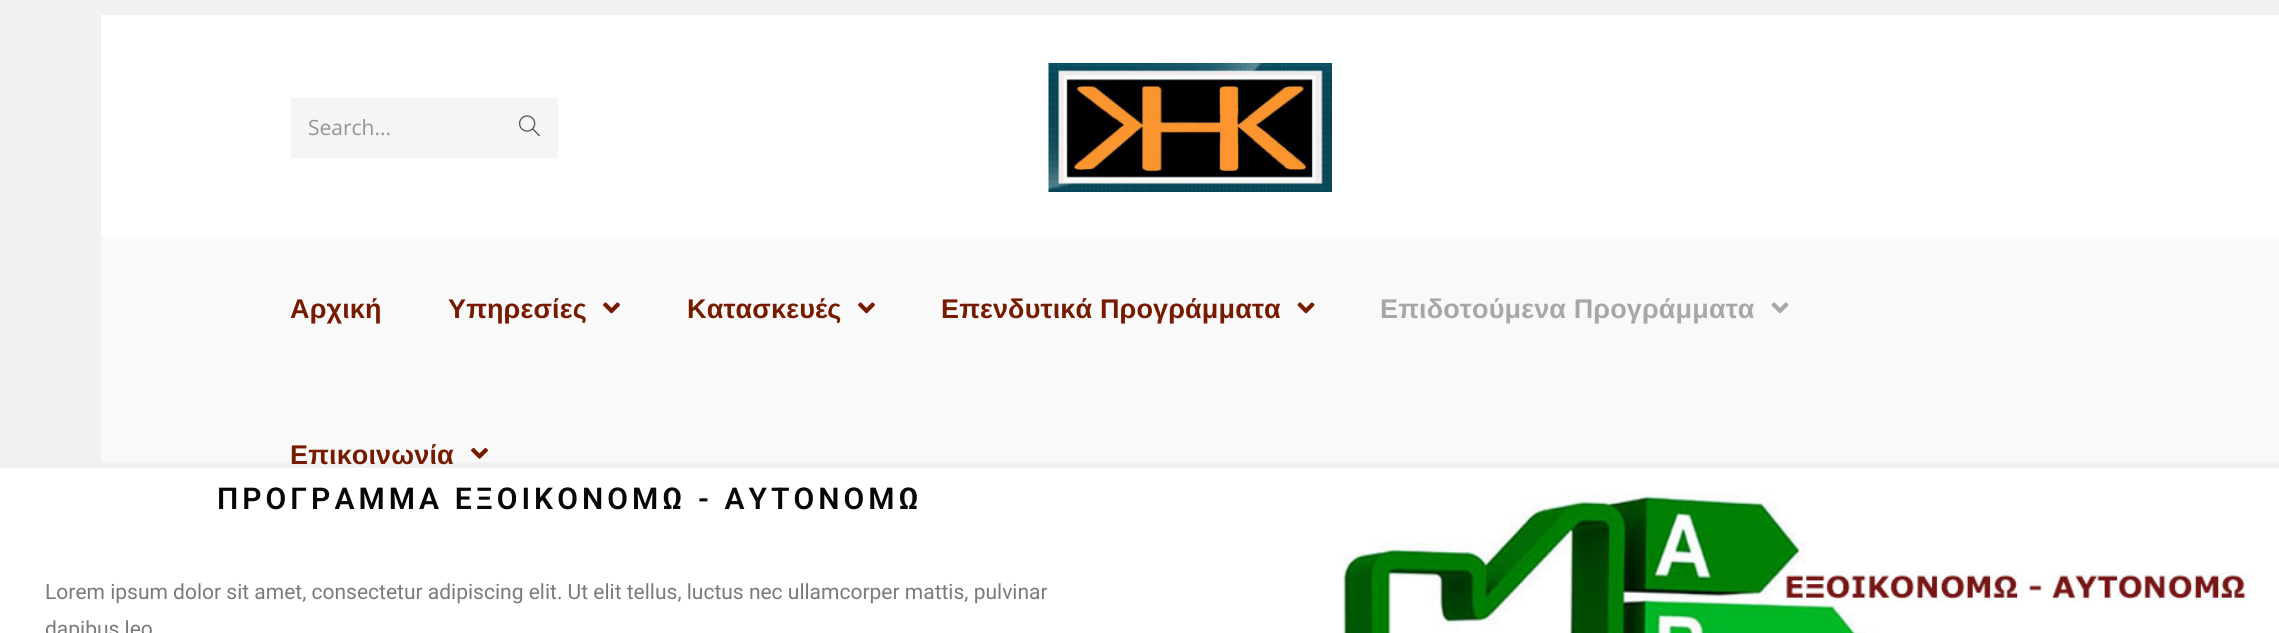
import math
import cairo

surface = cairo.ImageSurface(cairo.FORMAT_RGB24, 2279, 633)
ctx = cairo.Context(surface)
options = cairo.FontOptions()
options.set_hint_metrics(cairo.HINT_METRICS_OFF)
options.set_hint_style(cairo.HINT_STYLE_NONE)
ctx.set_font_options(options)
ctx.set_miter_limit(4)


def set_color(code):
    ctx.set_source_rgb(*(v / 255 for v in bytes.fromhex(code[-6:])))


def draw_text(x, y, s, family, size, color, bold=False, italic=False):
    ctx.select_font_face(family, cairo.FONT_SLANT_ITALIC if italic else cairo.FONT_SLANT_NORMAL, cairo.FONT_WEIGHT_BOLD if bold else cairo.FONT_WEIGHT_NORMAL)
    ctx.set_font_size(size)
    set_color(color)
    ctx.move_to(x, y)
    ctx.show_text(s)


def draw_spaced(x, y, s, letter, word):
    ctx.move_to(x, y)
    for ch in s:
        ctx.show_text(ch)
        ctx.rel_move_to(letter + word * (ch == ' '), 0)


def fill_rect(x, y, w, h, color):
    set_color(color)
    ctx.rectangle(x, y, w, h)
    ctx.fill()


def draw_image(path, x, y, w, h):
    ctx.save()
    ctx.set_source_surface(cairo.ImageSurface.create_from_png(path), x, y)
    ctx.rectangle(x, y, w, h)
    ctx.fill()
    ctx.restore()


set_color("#f1f1f1")
ctx.paint()
fill_rect(101, 15, 2178, 222, "#ffffff")
fill_rect(291, 98, 267, 60, "#f5f5f5")
draw_text(308, 135, "Search...", "Open Sans", 21, "#949494")
draw_image("assets/img1.png", 518, 115, 22, 22)
draw_image("assets/img2.png", 1048, 63, 284, 129)
fill_rect(101, 237, 2178, 225, "#f9f9f9")
ctx.select_font_face("Liberation Sans", cairo.FONT_SLANT_NORMAL, cairo.FONT_WEIGHT_BOLD)
ctx.set_font_size(27)
set_color("#771b00")
draw_spaced(290, 318, "Αρχική", 0.15, 0)
draw_spaced(448, 318, "Υπηρεσίες", 0.15, 0)
draw_image("assets/img3.png", 603, 302, 17, 12)
draw_spaced(687, 318, "Κατασκευές", 0.15, 0)
draw_image("assets/img3.png", 858, 302, 17, 12)
draw_spaced(941, 318, "Επενδυτικά Προγράμματα", 0.15, 0)
draw_image("assets/img4.png", 1297, 302, 18, 12)
set_color("#a7a7a7")
draw_spaced(1380, 318, "Επιδοτούμενα Προγράμματα", 0.15, 0)
draw_image("assets/img5.png", 1771, 302, 18, 12)
set_color("#771b00")
draw_spaced(290, 464, "Επικοινωνία", 0.15, 0)
draw_image("assets/img6.png", 471, 448, 17, 11)
fill_rect(0, 468, 2279, 165, "#ffffff")
ctx.select_font_face("Roboto SemiBold")
ctx.set_font_size(30)
set_color("#070707")
draw_spaced(217, 509, "ΠΡΟΓΡΑΜΜΑ ΕΞΟΙΚΟΝΟΜΩ - ΑΥΤΟΝΟΜΩ", 4.05, 0)
draw_text(45, 599, "Lorem ipsum dolor sit amet, consectetur adipiscing elit. Ut elit tellus, luctus nec ullamcorper mattis, pulvinar", "Roboto", 21, "#7a7a7a")
draw_text(45, 636, "dapibus leo", "Roboto", 21, "#7a7a7a")
draw_image("assets/img7.png", 1342, 493, 908, 140)
surface.write_to_png("output.png")
